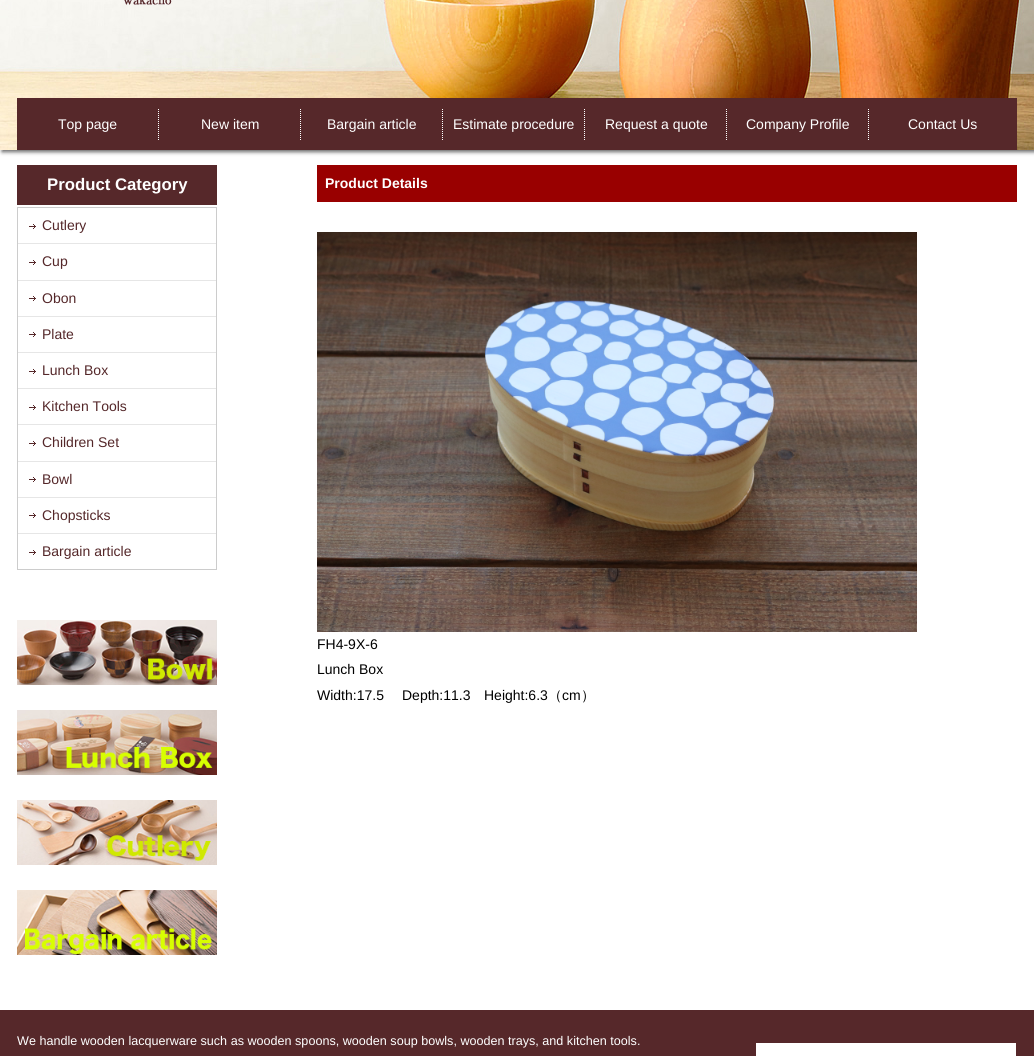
import math
import cairo

surface = cairo.ImageSurface(cairo.FORMAT_RGB24, 1034, 1056)
ctx = cairo.Context(surface)
options = cairo.FontOptions()
options.set_hint_metrics(cairo.HINT_METRICS_OFF)
options.set_hint_style(cairo.HINT_STYLE_NONE)
ctx.set_font_options(options)
ctx.set_miter_limit(4)


def set_color(code):
    ctx.set_source_rgb(*(v / 255 for v in bytes.fromhex(code[-6:])))


def draw_text(x, y, s, family, size, color, bold=False, italic=False):
    ctx.select_font_face(family, cairo.FONT_SLANT_ITALIC if italic else cairo.FONT_SLANT_NORMAL, cairo.FONT_WEIGHT_BOLD if bold else cairo.FONT_WEIGHT_NORMAL)
    ctx.set_font_size(size)
    set_color(color)
    ctx.move_to(x, y)
    ctx.show_text(s)


def fill_rect(x, y, w, h, color):
    set_color(color)
    ctx.rectangle(x, y, w, h)
    ctx.fill()


def rounded_rect(x, y, w, h, r):
    ctx.new_sub_path()
    for i, (u, v) in enumerate([(x + w - r, y + h - r), (x + r, y + h - r), (x + r, y + r), (x + w - r, y + r)]):
        ctx.arc(u, v, r, i * math.pi / 2, (i + 1) * math.pi / 2)
    ctx.close_path()


def draw_shadow(x, y, w, h, r, blur, alpha):
    ctx.push_group_with_content(cairo.CONTENT_ALPHA)
    ctx.set_operator(cairo.OPERATOR_SOURCE)
    for i in range(15, -16, -2):
        e = blur * i / 6
        if min(w, h) + 2 * e > 0:
            ctx.set_source_rgba(0, 0, 0, alpha * math.erfc((i - 1) / 8.5) / 2)
            rounded_rect(x - e, y - e, w + 2 * e, h + 2 * e, max(0, min(r + e + blur * .6, min(w, h) / 2 + e)))
            ctx.fill()
    ctx.mask(ctx.pop_group())


def draw_image(path, x, y, w, h):
    ctx.save()
    ctx.set_source_surface(cairo.ImageSurface.create_from_png(path), x, y)
    ctx.rectangle(x, y, w, h)
    ctx.fill()
    ctx.restore()


set_color("#ffffff")
ctx.paint()
set_color("#666666")
draw_shadow(2, -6, 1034, 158, 0, 2, 1)
draw_image("assets/img1.png", 0, 0, 1034, 150)
draw_image("assets/img2.png", 124, 0, 48, 5)
fill_rect(17, 98, 1000, 52, "#56282a")
draw_image("assets/img3.png", 158, 109, 1, 31)
draw_text(58, 129, "Top page", "Liberation Sans", 14, "#ffffff")
draw_image("assets/img3.png", 300, 109, 1, 31)
draw_text(201, 129, "New item", "Liberation Sans", 14, "#ffffff")
draw_image("assets/img3.png", 442, 109, 1, 31)
draw_text(327, 129, "Bargain article", "Liberation Sans", 14, "#ffffff")
draw_image("assets/img3.png", 584, 109, 1, 31)
draw_text(453, 129, "Estimate procedure", "Liberation Sans", 14, "#ffffff")
draw_image("assets/img3.png", 726, 109, 1, 31)
draw_text(605, 129, "Request a quote", "Liberation Sans", 14, "#ffffff")
draw_image("assets/img3.png", 868, 109, 1, 31)
draw_text(746, 129, "Company Profile", "Liberation Sans", 14, "#ffffff")
draw_text(908, 129, "Contact Us", "Liberation Sans", 14, "#ffffff")
fill_rect(17, 165, 200, 40, "#56282a")
draw_text(47, 190, "Product Category", "Liberation Sans", 16.75, "#ffffff", bold=True)
ctx.rectangle(17.5, 207.5, 199, 362)
set_color("#cccccc")
ctx.set_line_width(1)
ctx.stroke()
draw_image("assets/img4.png", 29, 224, 7, 5)
fill_rect(18, 243, 198, 1, "#e6e6e6")
draw_text(42, 230, "Cutlery", "Liberation Sans", 14, "#542729")
draw_image("assets/img4.png", 29, 260, 7, 5)
fill_rect(18, 280, 198, 1, "#e6e6e6")
draw_text(42, 266, "Cup", "Liberation Sans", 14, "#542729")
draw_image("assets/img4.png", 29, 296, 7, 5)
fill_rect(18, 316, 198, 1, "#e6e6e6")
draw_text(42, 303, "Obon", "Liberation Sans", 14, "#542729")
draw_image("assets/img4.png", 29, 332, 7, 5)
fill_rect(18, 352, 198, 1, "#e6e6e6")
draw_text(42, 339, "Plate", "Liberation Sans", 14, "#542729")
draw_image("assets/img4.png", 29, 369, 7, 5)
fill_rect(18, 388, 198, 1, "#e6e6e6")
draw_text(42, 375, "Lunch Box", "Liberation Sans", 14, "#542729")
draw_image("assets/img4.png", 29, 405, 7, 5)
fill_rect(18, 424, 198, 1, "#e6e6e6")
draw_text(42, 411, "Kitchen Tools", "Liberation Sans", 14, "#542729")
draw_image("assets/img4.png", 29, 441, 7, 5)
fill_rect(18, 461, 198, 1, "#e6e6e6")
draw_text(42, 447, "Children Set", "Liberation Sans", 14, "#542729")
draw_image("assets/img4.png", 29, 477, 7, 5)
fill_rect(18, 497, 198, 1, "#e6e6e6")
draw_text(42, 484, "Bowl", "Liberation Sans", 14, "#542729")
draw_image("assets/img4.png", 29, 513, 7, 5)
fill_rect(18, 533, 198, 1, "#e6e6e6")
draw_text(42, 520, "Chopsticks", "Liberation Sans", 14, "#542729")
draw_image("assets/img4.png", 29, 550, 7, 5)
draw_text(42, 556, "Bargain article", "Liberation Sans", 14, "#542729")
draw_image("assets/img5.png", 17, 620, 200, 65)
draw_image("assets/img6.png", 17, 710, 200, 65)
draw_image("assets/img7.png", 17, 800, 200, 65)
draw_image("assets/img8.png", 17, 890, 200, 65)
fill_rect(317, 165, 700, 37, "#990000")
draw_text(325, 188, "Product Details", "Liberation Sans", 14, "#ffffff", bold=True)
draw_image("assets/img9.png", 317, 232, 600, 400)
draw_text(317, 649, "FH4-9X-6", "Liberation Sans", 14, "#000000")
draw_text(317, 674, "Lunch Box", "Liberation Sans", 14, "#000000")
draw_text(317, 700, "Width:17.5", "Liberation Sans", 14, "#000000")
draw_text(402, 700, "Depth:11.3", "Liberation Sans", 14, "#000000")
draw_text(484, 700, "Height:6.3", "Liberation Sans", 14, "#000000")
draw_text(548, 700, "（", "WenQuanYi Zen Hei Medium", 14, "#000000")
draw_text(562, 700, "cm", "Liberation Sans", 14, "#000000")
draw_text(581, 700, "）", "WenQuanYi Zen Hei Medium", 14, "#000000")
fill_rect(0, 1010, 1034, 46, "#56282a")
fill_rect(756, 1043, 260, 13, "#ffffff")
draw_text(17, 1045, "We handle wooden lacquerware such as wooden spoons, wooden soup bowls, wooden trays, and kitchen tools.", "Liberation Sans", 12.6, "#ffffff")
surface.write_to_png("output.png")
